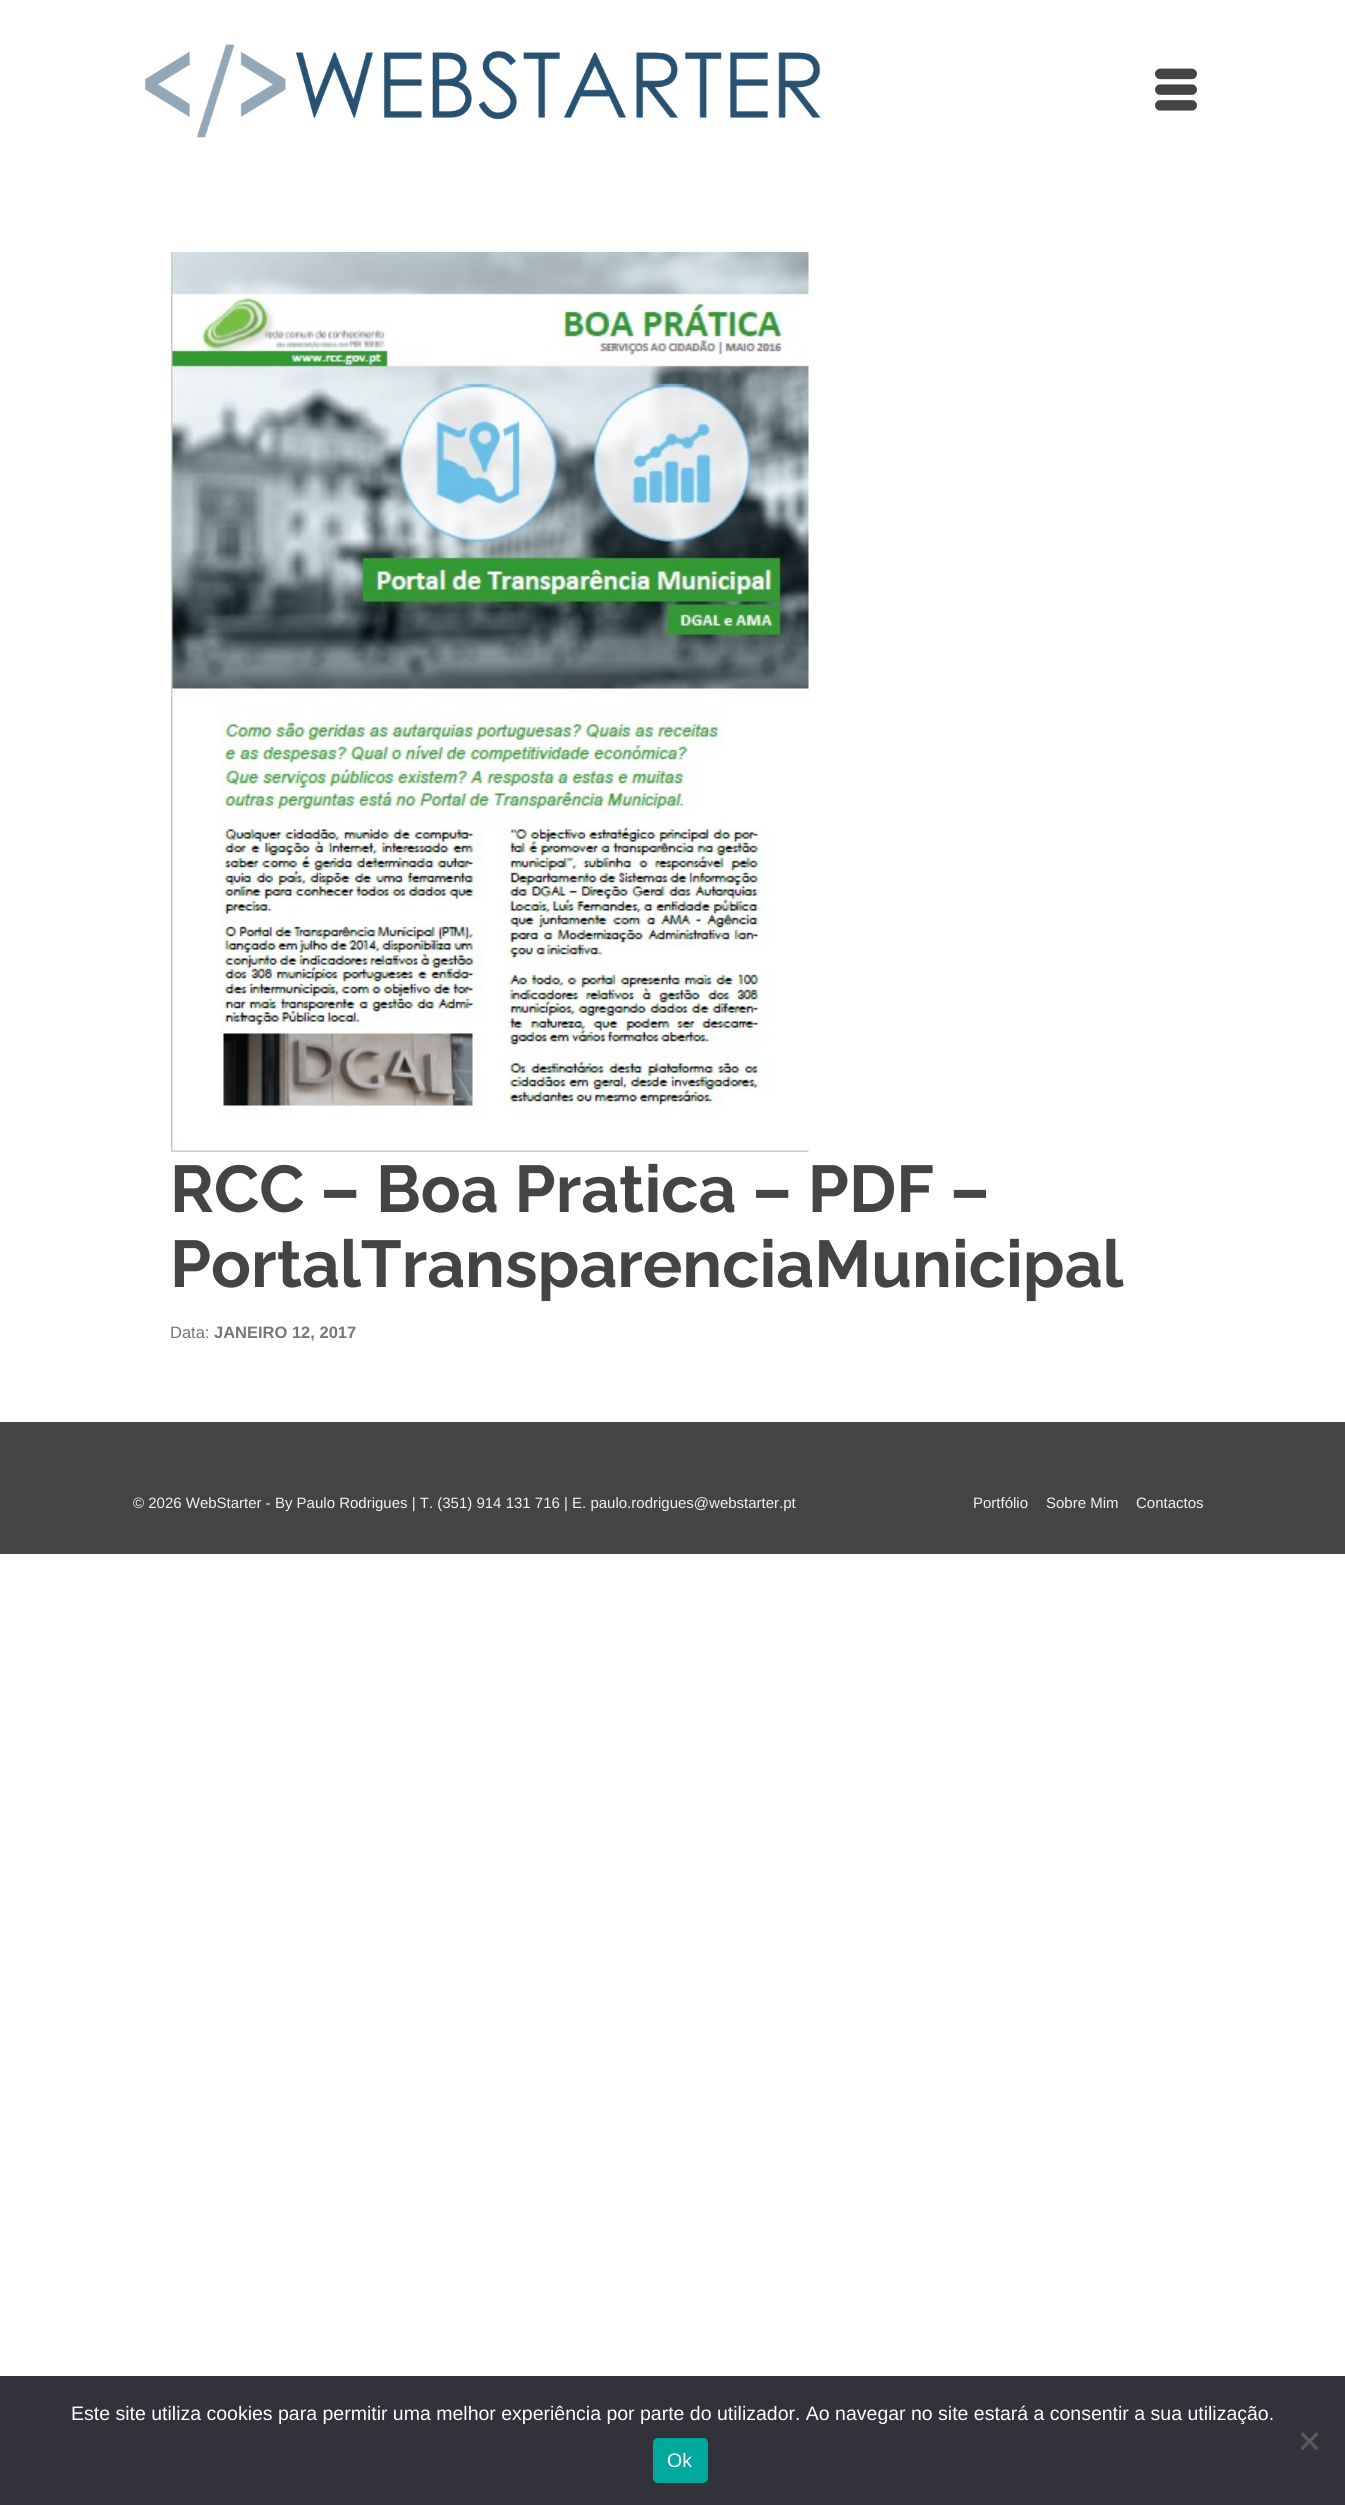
import math
import cairo

surface = cairo.ImageSurface(cairo.FORMAT_RGB24, 1345, 2505)
ctx = cairo.Context(surface)
options = cairo.FontOptions()
options.set_hint_metrics(cairo.HINT_METRICS_OFF)
options.set_hint_style(cairo.HINT_STYLE_NONE)
ctx.set_font_options(options)
ctx.set_miter_limit(4)


def set_color(code):
    ctx.set_source_rgb(*(v / 255 for v in bytes.fromhex(code[-6:])))


def draw_text(x, y, s, family, size, color, bold=False, italic=False):
    ctx.select_font_face(family, cairo.FONT_SLANT_ITALIC if italic else cairo.FONT_SLANT_NORMAL, cairo.FONT_WEIGHT_BOLD if bold else cairo.FONT_WEIGHT_NORMAL)
    ctx.set_font_size(size)
    set_color(color)
    ctx.move_to(x, y)
    ctx.show_text(s)


def fill_rect(x, y, w, h, color):
    set_color(color)
    ctx.rectangle(x, y, w, h)
    ctx.fill()


def rounded_rect(x, y, w, h, r):
    ctx.new_sub_path()
    for i, (u, v) in enumerate([(x + w - r, y + h - r), (x + r, y + h - r), (x + r, y + r), (x + w - r, y + r)]):
        ctx.arc(u, v, r, i * math.pi / 2, (i + 1) * math.pi / 2)
    ctx.close_path()


def draw_image(path, x, y, w, h):
    ctx.save()
    ctx.set_source_surface(cairo.ImageSurface.create_from_png(path), x, y)
    ctx.rectangle(x, y, w, h)
    ctx.fill()
    ctx.restore()


set_color("#ffffff")
ctx.paint()
draw_image("assets/img1.png", 144, 44, 677, 94)
draw_image("assets/img2.png", 1155, 68, 42, 43)
draw_image("assets/img3.png", 171, 252, 638, 900)
draw_text(170, 1212, "RCC – Boa Pratica – PDF –", "Raleway", 66, "#444444", bold=True)
draw_text(170, 1287, "PortalTransparenciaMunicipal", "Raleway", 66, "#444444", bold=True)
draw_text(170, 1338, "Data:", "Liberation Sans", 16.5, "#777777")
draw_text(214, 1338, "JANEIRO 12, 2017", "Liberation Sans", 16.5, "#777777", bold=True)
fill_rect(0, 1422, 1345, 132, "#444444")
draw_text(133, 1508, "© 2026 WebStarter - By Paulo Rodrigues | T. (351) 914 131 716 | E. paulo.rodrigues@webstarter.pt", "Liberation Sans", 15, "#f2f2f2")
draw_text(973, 1508, "Portfólio", "Liberation Sans", 15, "#f2f2f2")
draw_text(1046, 1508, "Sobre Mim", "Liberation Sans", 15, "#f2f2f2")
draw_text(1136, 1508, "Contactos", "Liberation Sans", 15, "#f2f2f2")
fill_rect(0, 2376, 1345, 129, "#32323a")
draw_text(71, 2420, "Este site utiliza cookies para permitir uma melhor experiência por parte do utilizador. Ao navegar no site estará a consentir a sua utilização.", "Liberation Sans", 19.5, "#ffffff")
set_color("#59595d")
ctx.new_path()
ctx.move_to(1316.5, 2432)
ctx.line_to(1318.5, 2434.5)
ctx.line_to(1302.5, 2450.5)
ctx.line_to(1300.5, 2448)
ctx.close_path()
ctx.fill()
ctx.new_path()
ctx.move_to(1300.5, 2434.5)
ctx.line_to(1302.5, 2432)
ctx.line_to(1318.5, 2448)
ctx.line_to(1316.5, 2450.5)
ctx.close_path()
ctx.fill()
set_color("#00a99d")
rounded_rect(653, 2438, 55, 45, 5)
ctx.fill()
draw_text(667, 2467, "Ok", "Liberation Sans", 19.5, "#ffffff")
surface.write_to_png("output.png")
